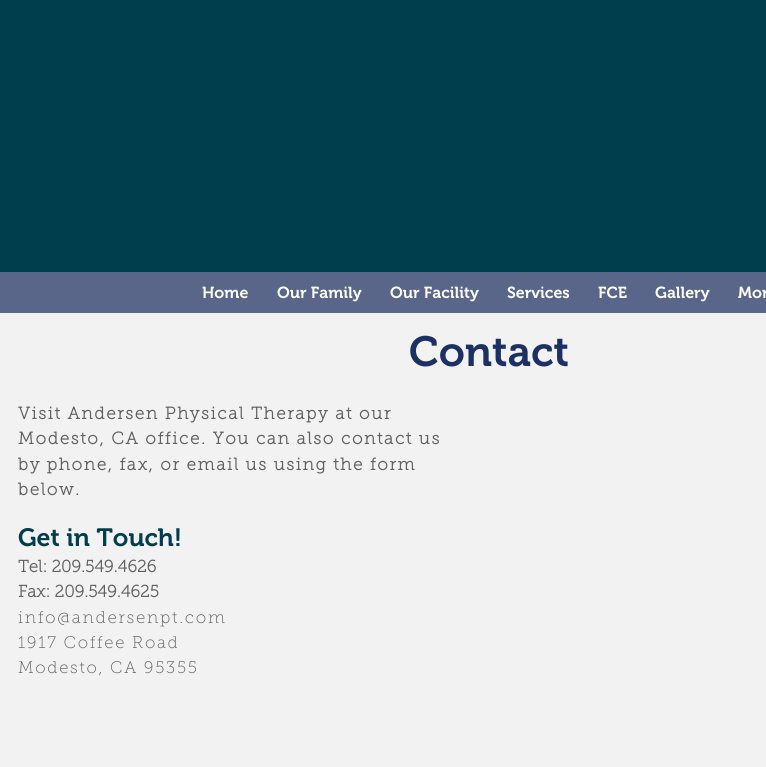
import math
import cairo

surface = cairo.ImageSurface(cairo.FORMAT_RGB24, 766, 767)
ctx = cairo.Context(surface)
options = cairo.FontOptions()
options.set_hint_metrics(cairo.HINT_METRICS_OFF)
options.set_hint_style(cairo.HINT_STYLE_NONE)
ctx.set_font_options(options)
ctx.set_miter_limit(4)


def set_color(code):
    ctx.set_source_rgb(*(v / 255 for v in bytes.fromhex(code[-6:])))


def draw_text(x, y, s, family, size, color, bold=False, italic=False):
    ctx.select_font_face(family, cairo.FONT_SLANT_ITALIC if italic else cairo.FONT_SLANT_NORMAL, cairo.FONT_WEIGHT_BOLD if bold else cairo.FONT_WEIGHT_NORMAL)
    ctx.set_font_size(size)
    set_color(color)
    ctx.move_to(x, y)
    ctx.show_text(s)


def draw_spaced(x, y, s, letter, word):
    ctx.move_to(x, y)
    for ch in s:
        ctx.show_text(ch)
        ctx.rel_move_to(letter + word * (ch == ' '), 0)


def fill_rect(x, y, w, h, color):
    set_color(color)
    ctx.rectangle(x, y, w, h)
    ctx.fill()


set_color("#f2f2f2")
ctx.paint()
fill_rect(0, 272, 766, 41, "#59668a")
fill_rect(0, 0, 766, 272, "#003d4d")
draw_text(202, 298, "Home", "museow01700 SemiBold", 16, "#ffffff")
draw_text(277, 298, "Our Family", "museow01700 SemiBold", 16, "#ffffff")
draw_text(390, 298, "Our Facility", "museow01700 SemiBold", 16, "#ffffff")
draw_text(507, 298, "Services", "museow01700 SemiBold", 16, "#ffffff")
draw_text(598, 298, "FCE", "museow01700 SemiBold", 16, "#ffffff")
draw_text(655, 298, "Gallery", "museow01700 SemiBold", 16, "#ffffff")
draw_text(738, 298, "Mor", "museow01700 SemiBold", 16, "#ffffff")
draw_text(409, 366, "Contact", "museow01700 SemiBold", 42, "#1c3063")
ctx.select_font_face("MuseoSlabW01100", cairo.FONT_SLANT_NORMAL, cairo.FONT_WEIGHT_BOLD)
ctx.set_font_size(17)
set_color("#606060")
draw_spaced(18, 419, "Visit Andersen Physical Therapy at our", 1.7, 0)
draw_spaced(18, 444, "Modesto, CA office. You can also contact us", 1.7, 0)
draw_spaced(18, 470, "by phone, fax, or email us using the form", 1.7, 0)
draw_spaced(18, 495, "below.", 1.7, 0)
draw_text(18, 546, "Get in Touch!", "museow01700 SemiBold", 25, "#003d4d")
draw_text(18, 572, "Tel: 209.549.4626", "MuseoSlabW01100", 16.75, "#606060", bold=True)
draw_text(18, 597, "Fax: 209.549.4625", "MuseoSlabW01100", 16.75, "#606060", bold=True)
ctx.select_font_face("MuseoSlabW01100 Thin")
ctx.set_font_size(17)
draw_spaced(18, 623, "info@andersenpt.com", 1.7, 0)
ctx.set_font_size(16.75)
draw_spaced(18, 648, "1917 Coffee Road", 1.7, 0)
draw_spaced(18, 673, "Modesto, CA 95355", 1.7, 0)
surface.write_to_png("output.png")
